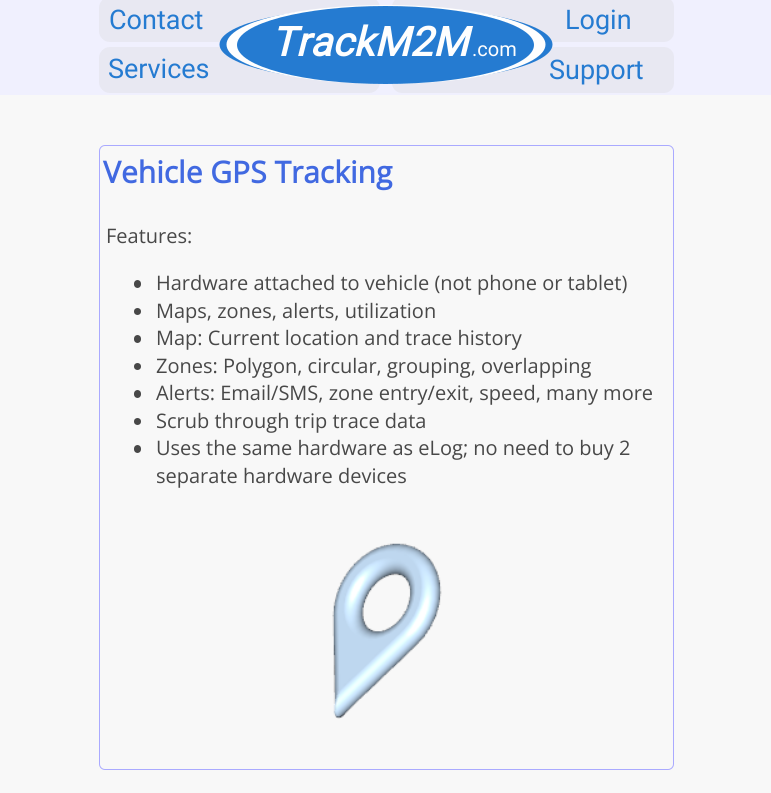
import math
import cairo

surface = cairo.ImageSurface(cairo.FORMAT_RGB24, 771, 793)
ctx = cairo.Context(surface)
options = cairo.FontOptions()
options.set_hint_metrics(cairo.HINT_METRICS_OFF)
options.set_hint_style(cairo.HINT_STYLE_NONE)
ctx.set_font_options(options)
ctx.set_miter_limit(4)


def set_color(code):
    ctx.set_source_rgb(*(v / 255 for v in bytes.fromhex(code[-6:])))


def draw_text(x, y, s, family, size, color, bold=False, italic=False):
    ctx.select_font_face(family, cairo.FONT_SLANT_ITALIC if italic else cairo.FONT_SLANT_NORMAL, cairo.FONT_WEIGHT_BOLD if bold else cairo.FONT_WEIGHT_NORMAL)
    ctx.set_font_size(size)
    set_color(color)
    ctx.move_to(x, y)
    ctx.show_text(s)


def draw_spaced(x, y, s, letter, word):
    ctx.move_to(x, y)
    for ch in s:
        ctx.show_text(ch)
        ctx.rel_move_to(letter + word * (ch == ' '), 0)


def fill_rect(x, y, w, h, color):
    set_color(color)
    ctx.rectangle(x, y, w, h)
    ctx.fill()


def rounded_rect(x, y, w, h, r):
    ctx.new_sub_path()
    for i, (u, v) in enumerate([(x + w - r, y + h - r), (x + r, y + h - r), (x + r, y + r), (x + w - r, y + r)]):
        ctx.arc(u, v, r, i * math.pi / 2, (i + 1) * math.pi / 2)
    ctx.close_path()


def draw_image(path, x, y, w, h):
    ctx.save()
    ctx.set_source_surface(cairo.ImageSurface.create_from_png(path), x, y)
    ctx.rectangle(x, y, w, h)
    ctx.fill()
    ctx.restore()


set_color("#f8f8f8")
ctx.paint()
fill_rect(0, 0, 771, 95, "#f0f0fe")
set_color("#e8e8f2")
rounded_rect(99, -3, 281, 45, 11)
ctx.fill()
draw_text(109, 29, "Contact", "Roboto", 27, "#257bd1")
set_color("#e8e8f2")
rounded_rect(392, -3, 282, 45, 10)
ctx.fill()
draw_text(565, 29, "Login", "Roboto", 27, "#257bd1")
set_color("#e8e8f2")
rounded_rect(99, 47, 281, 46, 11)
ctx.fill()
rounded_rect(392, 47, 282, 46, 10)
ctx.fill()
set_color("#257bd1")
ctx.new_path()
ctx.move_to(386, 6.5)
ctx.curve_to(478, 6.5, 552.5, 23.5, 552.5, 44.5)
ctx.curve_to(552.5, 65.5, 478, 82.5, 386, 82.5)
ctx.curve_to(294, 82.5, 219.5, 65.5, 219.5, 44.5)
ctx.curve_to(219.5, 23.5, 294, 6.5, 386, 6.5)
ctx.close_path()
ctx.fill()
set_color("#fefefe")
ctx.new_path()
ctx.move_to(386, 5)
ctx.curve_to(474, 5, 545.5, 22.5, 545.5, 44.5)
ctx.curve_to(545.5, 66.5, 474, 84, 386, 84)
ctx.curve_to(298, 84, 226.5, 66.5, 226.5, 44.5)
ctx.curve_to(226.5, 22.5, 298, 5, 386, 5)
ctx.close_path()
ctx.fill()
set_color("#257bd1")
ctx.new_path()
ctx.move_to(385.5, 6)
ctx.curve_to(467.5, 6, 534, 23.5, 534, 45)
ctx.curve_to(534, 66.5, 467.5, 84, 385.5, 84)
ctx.curve_to(303.5, 84, 237, 66.5, 237, 45)
ctx.curve_to(237, 23.5, 303.5, 6, 385.5, 6)
ctx.close_path()
ctx.fill()
ctx.select_font_face("Roboto", cairo.FONT_SLANT_ITALIC, cairo.FONT_WEIGHT_BOLD)
ctx.set_font_size(40.5)
set_color("#fefefe")
draw_spaced(271, 56, "TrackM2M", 0.25, 0)
draw_text(472, 56, ".com", "Roboto", 20, "#fefefe")
draw_text(108, 78, "Services", "Roboto", 27, "#257bd1")
draw_text(549, 79, "Support", "Roboto", 27, "#257bd1")
rounded_rect(99.5, 145.5, 574, 624, 5.5)
set_color("#aaaaff")
ctx.set_line_width(1)
ctx.stroke()
draw_text(103, 183, "Vehicle GPS Tracking", "Open Sans", 30, "#4169e1", bold=True)
draw_text(106, 243, "Features:", "Open Sans", 20, "#484848")
rounded_rect(134, 280, 7, 8, 3.5)
ctx.fill()
draw_text(156, 290, "Hardware attached to vehicle (not phone or tablet)", "Open Sans", 20, "#484848")
ctx.new_path()
ctx.arc(137.5, 311.5, 3.5, 0, 2 * math.pi)
ctx.fill()
draw_text(156, 318, "Maps, zones, alerts, utilization", "Open Sans", 20, "#484848")
rounded_rect(134, 335, 7, 8, 3.5)
ctx.fill()
draw_text(156, 345, "Map: Current location and trace history", "Open Sans", 20, "#484848")
ctx.new_path()
ctx.arc(137.5, 366.5, 3.5, 0, 2 * math.pi)
ctx.fill()
draw_text(156, 373, "Zones: Polygon, circular, grouping, overlapping", "Open Sans", 20, "#484848")
rounded_rect(134, 390, 7, 8, 3.5)
ctx.fill()
draw_text(156, 400, "Alerts: Email/SMS, zone entry/exit, speed, many more", "Open Sans", 20, "#484848")
ctx.new_path()
ctx.arc(137.5, 421.5, 3.5, 0, 2 * math.pi)
ctx.fill()
draw_text(156, 428, "Scrub through trip trace data", "Open Sans", 20, "#484848")
rounded_rect(134, 445, 7, 8, 3.5)
ctx.fill()
draw_text(156, 455, "Uses the same hardware as eLog; no need to buy 2", "Open Sans", 20, "#484848")
draw_text(156, 483, "separate hardware devices", "Open Sans", 20, "#484848")
draw_image("assets/img1.png", 332, 543, 110, 176)
surface.write_to_png("output.png")
